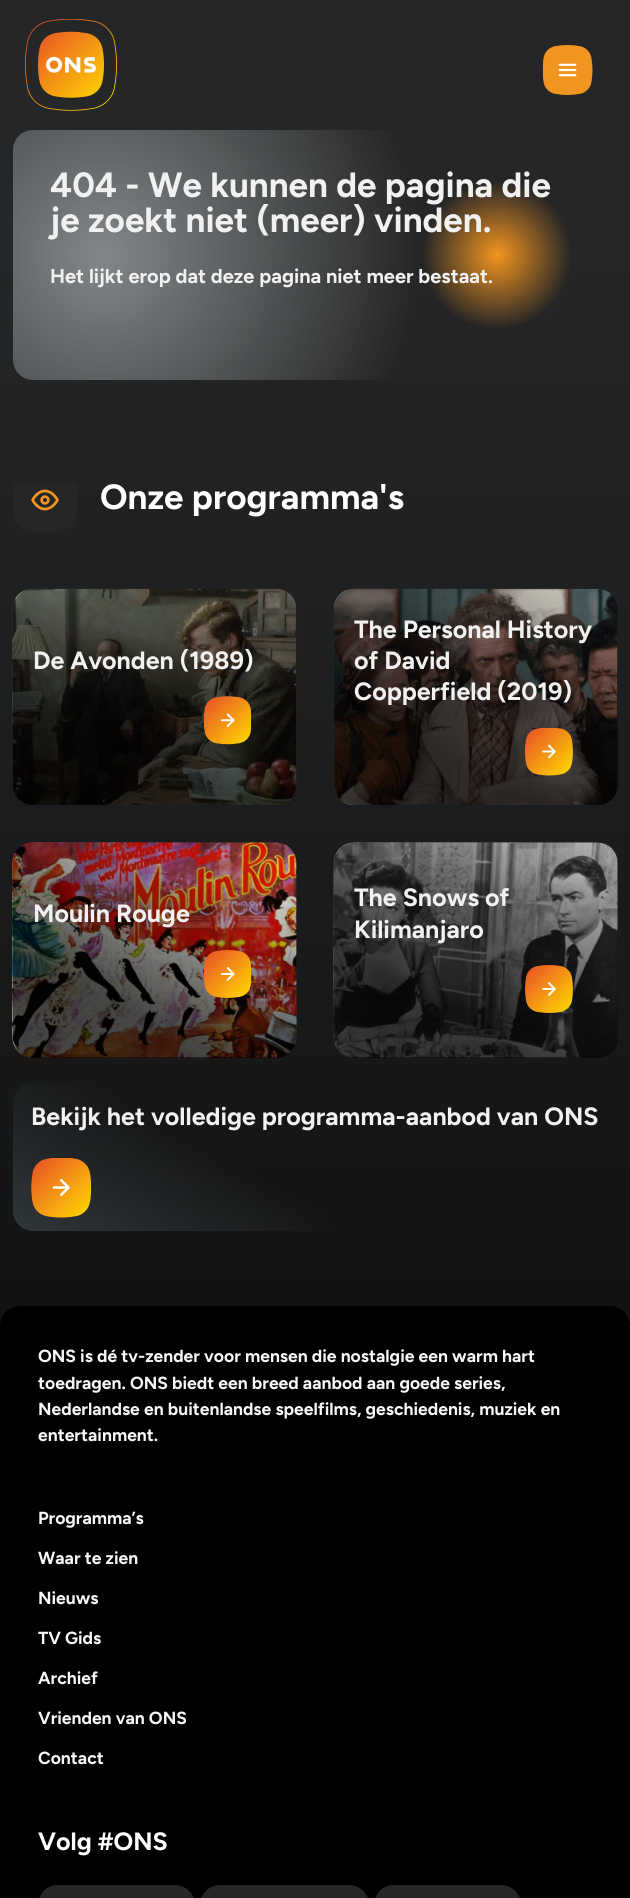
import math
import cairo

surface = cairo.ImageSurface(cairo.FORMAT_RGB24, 630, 1898)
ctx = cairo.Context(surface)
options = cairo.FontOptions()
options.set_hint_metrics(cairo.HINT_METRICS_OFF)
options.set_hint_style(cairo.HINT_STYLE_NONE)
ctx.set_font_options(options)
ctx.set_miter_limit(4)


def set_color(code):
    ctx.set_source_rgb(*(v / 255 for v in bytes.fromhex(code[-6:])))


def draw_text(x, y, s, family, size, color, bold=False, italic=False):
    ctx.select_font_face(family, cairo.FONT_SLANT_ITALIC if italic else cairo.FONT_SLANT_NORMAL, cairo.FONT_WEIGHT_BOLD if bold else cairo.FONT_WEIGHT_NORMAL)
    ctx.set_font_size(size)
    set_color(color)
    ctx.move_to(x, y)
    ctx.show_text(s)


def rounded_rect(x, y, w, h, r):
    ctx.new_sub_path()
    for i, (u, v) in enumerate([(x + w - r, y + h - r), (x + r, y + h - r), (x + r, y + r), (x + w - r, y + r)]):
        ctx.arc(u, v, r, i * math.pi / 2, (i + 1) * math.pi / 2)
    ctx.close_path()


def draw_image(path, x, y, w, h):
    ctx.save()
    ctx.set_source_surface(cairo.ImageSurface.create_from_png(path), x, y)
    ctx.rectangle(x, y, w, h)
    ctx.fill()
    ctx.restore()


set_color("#ffffff")
ctx.paint()
gradient = cairo.LinearGradient(315, 0, 315, 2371)
gradient.add_color_stop_rgba(0.1, 0.145, 0.149, 0.153, 1)
gradient.add_color_stop_rgba(1, 0, 0, 0, 1)
ctx.set_source(gradient)
ctx.rectangle(0, 0, 630, 1326)
ctx.fill()
draw_image("assets/img1.png", 25, 19, 92, 92)
draw_image("assets/img2.png", 543, 45, 50, 50)
gradient = cairo.RadialGradient(103, 255, 0, 103, 255, 529)
gradient.add_color_stop_rgba(0, 0.514, 0.529, 0.537, 1)
gradient.add_color_stop_rgba(0.6, 0.514, 0.529, 0.537, 0)
ctx.set_source(gradient)
rounded_rect(13, 130, 605, 250, 20)
ctx.fill()
gradient = cairo.RadialGradient(497, 255, 0, 497, 255, 500)
gradient.add_color_stop_rgba(0, 0.949, 0.584, 0.125, 1)
gradient.add_color_stop_rgba(0.15, 0.949, 0.584, 0.125, 0)
ctx.set_source(gradient)
ctx.rectangle(424, 182, 147, 146)
ctx.fill()
draw_text(50, 197, "404 - We kunnen de pagina die", "Figtree", 35, "#f1f1f1", bold=True)
draw_text(50, 232, "je zoekt niet (meer) vinden.", "Figtree", 35, "#f1f1f1", bold=True)
draw_text(50, 283, "Het lijkt erop dat deze pagina niet meer bestaat.", "Figtree", 20, "#f1f1f1", bold=True)
draw_image("assets/img3.png", 13, 483, 64, 49)
draw_text(100, 509, "Onze programma's", "Figtree", 35, "#ffffff", bold=True)
draw_image("assets/img4.png", 12, 588, 285, 217)
gradient = cairo.LinearGradient(78, 840, 230, 554)
gradient.add_color_stop_rgba(0.3, 0, 0, 0, 0.72)
gradient.add_color_stop_rgba(1, 0, 0, 0, 0)
ctx.set_source(gradient)
rounded_rect(13, 589, 283, 216, 20)
ctx.fill()
draw_text(33, 669, "De Avonden (1989)", "Figtree", 25, "#f1f1f1", bold=True)
draw_image("assets/img5.png", 204, 696, 47, 49)
draw_image("assets/img6.png", 333, 588, 285, 217)
gradient = cairo.LinearGradient(400, 840, 552, 554)
gradient.add_color_stop_rgba(0.3, 0, 0, 0, 0.72)
gradient.add_color_stop_rgba(1, 0, 0, 0, 0)
ctx.set_source(gradient)
rounded_rect(334, 589, 284, 216, 20)
ctx.fill()
draw_text(354, 638, "The Personal History", "Figtree", 25, "#f1f1f1", bold=True)
draw_text(354, 669, "of David", "Figtree", 25, "#f1f1f1", bold=True)
draw_text(354, 700, "Copperfield (2019)", "Figtree", 25, "#f1f1f1", bold=True)
draw_image("assets/img7.png", 525, 728, 48, 48)
draw_image("assets/img8.png", 12, 842, 285, 216)
gradient = cairo.LinearGradient(79, 1093, 230, 807)
gradient.add_color_stop_rgba(0.3, 0, 0, 0, 0.72)
gradient.add_color_stop_rgba(1, 0, 0, 0, 0)
ctx.set_source(gradient)
rounded_rect(13, 843, 283, 215, 20)
ctx.fill()
draw_text(33, 922, "Moulin Rouge", "Figtree", 25, "#f1f1f1", bold=True)
draw_image("assets/img9.png", 204, 950, 47, 48)
draw_image("assets/img10.png", 333, 842, 285, 216)
gradient = cairo.LinearGradient(400, 1093, 551, 807)
gradient.add_color_stop_rgba(0.3, 0, 0, 0, 0.72)
gradient.add_color_stop_rgba(1, 0, 0, 0, 0)
ctx.set_source(gradient)
rounded_rect(334, 843, 284, 215, 20)
ctx.fill()
draw_text(354, 906, "The Snows of", "Figtree", 25, "#f1f1f1", bold=True)
draw_text(354, 938, "Kilimanjaro", "Figtree", 25, "#f1f1f1", bold=True)
draw_image("assets/img11.png", 525, 965, 48, 48)
gradient = cairo.LinearGradient(418, 972, 212, 1342)
gradient.add_color_stop_rgba(0.61, 0.188, 0.216, 0.227, 0)
gradient.add_color_stop_rgba(1, 0.188, 0.216, 0.227, 1)
ctx.set_source(gradient)
rounded_rect(13, 1083, 605, 148, 20)
ctx.fill()
draw_text(31, 1125, "Bekijk het volledige programma-aanbod van ONS", "Figtree", 25, "#f1f1f1", bold=True)
draw_image("assets/img12.png", 31, 1158, 60, 60)
set_color("#000000")
rounded_rect(0, 1306, 630, 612, 20)
ctx.fill()
draw_text(38, 1362, "ONS is dé tv-zender voor mensen die nostalgie een warm hart", "Figtree", 17.5, "#f7f7f7", bold=True)
draw_text(38, 1389, "toedragen. ONS biedt een breed aanbod aan goede series,", "Figtree", 17.5, "#f7f7f7", bold=True)
draw_text(38, 1415, "Nederlandse en buitenlandse speelfilms, geschiedenis, muziek en", "Figtree", 17.5, "#f7f7f7", bold=True)
draw_text(38, 1441, "entertainment.", "Figtree", 17.5, "#f7f7f7", bold=True)
draw_text(38, 1524, "Programma’s", "Figtree", 17.5, "#f7f7f7", bold=True)
draw_text(38, 1564, "Waar te zien", "Figtree", 17.5, "#f7f7f7", bold=True)
draw_text(38, 1604, "Nieuws", "Figtree", 17.5, "#f7f7f7", bold=True)
draw_text(38, 1644, "TV Gids", "Figtree", 17.5, "#f7f7f7", bold=True)
draw_text(38, 1684, "Archief", "Figtree", 17.5, "#f7f7f7", bold=True)
draw_text(38, 1724, "Vrienden van ONS", "Figtree", 17.5, "#f7f7f7", bold=True)
draw_text(38, 1764, "Contact", "Figtree", 17.5, "#f7f7f7", bold=True)
draw_text(38, 1850, "Volg #ONS", "Figtree", 25, "#ffffff", bold=True)
set_color("#252627")
rounded_rect(38, 1885, 157, 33, 20)
ctx.fill()
rounded_rect(200, 1885, 169, 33, 20)
ctx.fill()
rounded_rect(374, 1885, 147, 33, 20)
ctx.fill()
surface.write_to_png("output.png")
